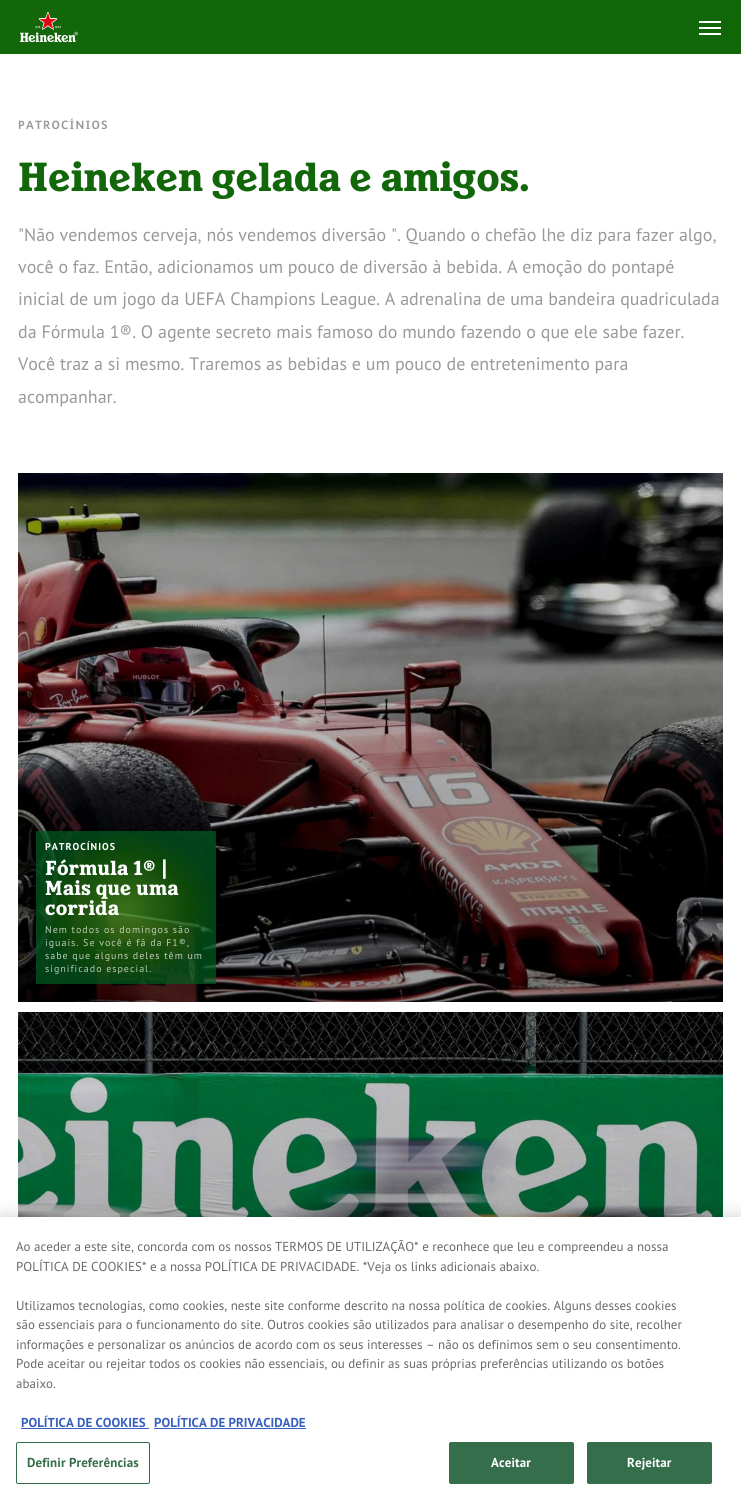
import math
import cairo

surface = cairo.ImageSurface(cairo.FORMAT_RGB24, 741, 1504)
ctx = cairo.Context(surface)
options = cairo.FontOptions()
options.set_hint_metrics(cairo.HINT_METRICS_OFF)
options.set_hint_style(cairo.HINT_STYLE_NONE)
ctx.set_font_options(options)
ctx.set_miter_limit(4)


def set_color(code):
    ctx.set_source_rgb(*(v / 255 for v in bytes.fromhex(code[-6:])))


def draw_text(x, y, s, family, size, color, bold=False, italic=False):
    ctx.select_font_face(family, cairo.FONT_SLANT_ITALIC if italic else cairo.FONT_SLANT_NORMAL, cairo.FONT_WEIGHT_BOLD if bold else cairo.FONT_WEIGHT_NORMAL)
    ctx.set_font_size(size)
    set_color(color)
    ctx.move_to(x, y)
    ctx.show_text(s)


def draw_spaced(x, y, s, letter, word):
    ctx.move_to(x, y)
    for ch in s:
        ctx.show_text(ch)
        ctx.rel_move_to(letter + word * (ch == ' '), 0)


def fill_rect(x, y, w, h, color):
    set_color(color)
    ctx.rectangle(x, y, w, h)
    ctx.fill()


def rounded_rect(x, y, w, h, r):
    ctx.new_sub_path()
    for i, (u, v) in enumerate([(x + w - r, y + h - r), (x + r, y + h - r), (x + r, y + r), (x + w - r, y + r)]):
        ctx.arc(u, v, r, i * math.pi / 2, (i + 1) * math.pi / 2)
    ctx.close_path()


def draw_shadow(x, y, w, h, r, blur, alpha):
    ctx.push_group_with_content(cairo.CONTENT_ALPHA)
    ctx.set_operator(cairo.OPERATOR_SOURCE)
    for i in range(15, -16, -2):
        e = blur * i / 6
        if min(w, h) + 2 * e > 0:
            ctx.set_source_rgba(0, 0, 0, alpha * math.erfc((i - 1) / 8.5) / 2)
            rounded_rect(x - e, y - e, w + 2 * e, h + 2 * e, max(0, min(r + e + blur * .6, min(w, h) / 2 + e)))
            ctx.fill()
    ctx.mask(ctx.pop_group())


def draw_image(path, x, y, w, h):
    ctx.save()
    ctx.set_source_surface(cairo.ImageSurface.create_from_png(path), x, y)
    ctx.rectangle(x, y, w, h)
    ctx.fill()
    ctx.restore()


set_color("#ffffff")
ctx.paint()
fill_rect(0, 0, 741, 54, "#13670b")
draw_image("assets/img1.png", 20, 12, 58, 30)
fill_rect(699, 21, 22, 2, "#ffffff")
fill_rect(699, 27, 22, 2, "#ffffff")
fill_rect(699, 33, 22, 2, "#ffffff")
ctx.select_font_face("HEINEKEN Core", cairo.FONT_SLANT_NORMAL, cairo.FONT_WEIGHT_BOLD)
ctx.set_font_size(12)
set_color("#999999")
draw_spaced(18, 129, "PATROCÍNIOS", 1.25, 0)
draw_text(18, 191, "Heineken gelada e amigos.", "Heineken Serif", 36, "#13670b", bold=True)
draw_text(18, 241, "\"Não vendemos cerveja, nós vendemos diversão \". Quando o chefão lhe diz para fazer algo,", "PT Sans", 18, "#999999")
draw_text(18, 273, "você o faz. Então, adicionamos um pouco de diversão à bebida. A emoção do pontapé", "PT Sans", 18, "#999999")
draw_text(18, 305, "inicial de um jogo da UEFA Champions League. A adrenalina de uma bandeira quadriculada", "PT Sans", 18, "#999999")
draw_text(18, 338, "da Fórmula 1®. O agente secreto mais famoso do mundo fazendo o que ele sabe fazer.", "PT Sans", 18, "#999999")
draw_text(18, 370, "Você traz a si mesmo. Traremos as bebidas e um pouco de entretenimento para", "PT Sans", 18, "#999999")
draw_text(18, 403, "acompanhar.", "PT Sans", 18, "#999999")
draw_image("assets/img2.png", 18, 473, 705, 529)
ctx.select_font_face("PT Sans", cairo.FONT_SLANT_NORMAL, cairo.FONT_WEIGHT_BOLD)
ctx.set_font_size(10)
set_color("#ffffff")
draw_spaced(45, 850, "PATROCÍNIOS", 1, 0)
ctx.select_font_face("Heineken Serif", cairo.FONT_SLANT_NORMAL, cairo.FONT_WEIGHT_BOLD)
ctx.set_font_size(18)
draw_spaced(45, 875, "Fórmula 1® |", 0.25, 0)
draw_spaced(45, 895, "Mais que uma", 0.25, 0)
draw_spaced(45, 915, "corrida", 0.25, 0)
ctx.select_font_face("PT Sans")
ctx.set_font_size(10)
set_color("#bcccb7")
draw_spaced(45, 933, "Nem todos os domingos são", 1, 0)
draw_spaced(45, 946, "iguais. Se você é fã da F1®,", 1, 0)
draw_spaced(45, 959, "sabe que alguns deles têm um", 1, 0)
set_color("#b6c7b8")
draw_spaced(45, 972, "significado especial.", 1, 0)
draw_image("assets/img3.png", 18, 1012, 705, 205)
set_color("#000000")
draw_shadow(0, 1217, 741, 287, 0, 9, 0.2)
fill_rect(0, 1217, 741, 287, "#ffffff")
draw_text(16, 1251, "Ao aceder a este site, concorda com os nossos TERMOS DE UTILIZAÇÃO* e reconhece que leu e compreendeu a nossa", "PT Sans", 13, "#696969")
draw_text(16, 1271, "POLÍTICA DE COOKIES* e a nossa POLÍTICA DE PRIVACIDADE. *Veja os links adicionais abaixo.", "PT Sans", 13, "#696969")
draw_text(16, 1310, "Utilizamos tecnologias, como cookies, neste site conforme descrito na nossa política de cookies. Alguns desses cookies", "PT Sans", 13, "#696969")
draw_text(16, 1329, "são essenciais para o funcionamento do site. Outros cookies são utilizados para analisar o desempenho do site, recolher", "PT Sans", 13, "#696969")
draw_text(16, 1349, "informações e personalizar os anúncios de acordo com os seus interesses – não os definimos sem o seu consentimento.", "PT Sans", 13, "#696969")
draw_text(16, 1368, "Pode aceitar ou rejeitar todos os cookies não essenciais, ou definir as suas próprias preferências utilizando os botões", "PT Sans", 13, "#696969")
draw_text(16, 1388, "abaixo.", "PT Sans", 13, "#696969")
draw_text(21, 1427, "POLÍTICA DE COOKIES", "PT Sans", 13, "#3860be", bold=True)
fill_rect(21, 1428, 128, 1, "#3860be")
draw_text(154, 1427, "POLÍTICA DE PRIVACIDADE", "PT Sans", 13, "#3860be", bold=True)
fill_rect(154, 1428, 152, 1, "#3860be")
rounded_rect(16.5, 1442.5, 133, 41, 1.5)
set_color("#346e4a")
ctx.set_line_width(1)
ctx.stroke()
draw_spaced(27, 1467, "Definir Preferências", 0.1, 0)
rounded_rect(449.5, 1442.5, 124, 41, 1.5)
ctx.fill_preserve()
ctx.stroke()
set_color("#ffffff")
draw_spaced(491, 1467, "Aceitar", 0.1, 0)
set_color("#346e4a")
rounded_rect(587.5, 1442.5, 124, 41, 1.5)
ctx.fill_preserve()
ctx.stroke()
set_color("#ffffff")
draw_spaced(627, 1467, "Rejeitar", 0.1, 0)
surface.write_to_png("output.png")
